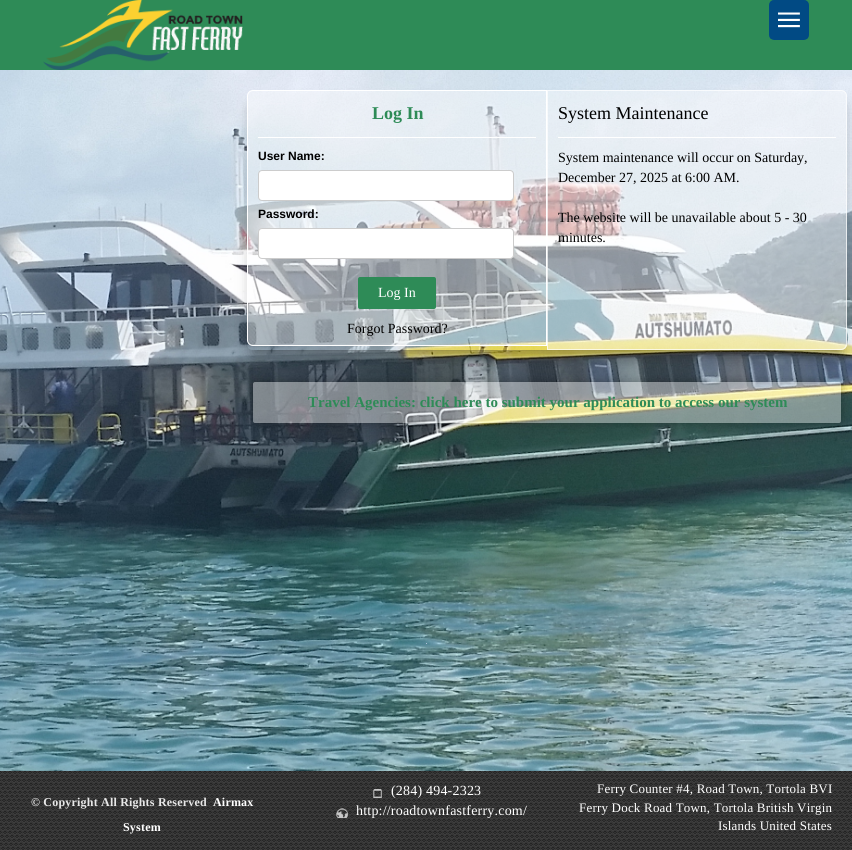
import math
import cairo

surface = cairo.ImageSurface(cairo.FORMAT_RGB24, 852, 850)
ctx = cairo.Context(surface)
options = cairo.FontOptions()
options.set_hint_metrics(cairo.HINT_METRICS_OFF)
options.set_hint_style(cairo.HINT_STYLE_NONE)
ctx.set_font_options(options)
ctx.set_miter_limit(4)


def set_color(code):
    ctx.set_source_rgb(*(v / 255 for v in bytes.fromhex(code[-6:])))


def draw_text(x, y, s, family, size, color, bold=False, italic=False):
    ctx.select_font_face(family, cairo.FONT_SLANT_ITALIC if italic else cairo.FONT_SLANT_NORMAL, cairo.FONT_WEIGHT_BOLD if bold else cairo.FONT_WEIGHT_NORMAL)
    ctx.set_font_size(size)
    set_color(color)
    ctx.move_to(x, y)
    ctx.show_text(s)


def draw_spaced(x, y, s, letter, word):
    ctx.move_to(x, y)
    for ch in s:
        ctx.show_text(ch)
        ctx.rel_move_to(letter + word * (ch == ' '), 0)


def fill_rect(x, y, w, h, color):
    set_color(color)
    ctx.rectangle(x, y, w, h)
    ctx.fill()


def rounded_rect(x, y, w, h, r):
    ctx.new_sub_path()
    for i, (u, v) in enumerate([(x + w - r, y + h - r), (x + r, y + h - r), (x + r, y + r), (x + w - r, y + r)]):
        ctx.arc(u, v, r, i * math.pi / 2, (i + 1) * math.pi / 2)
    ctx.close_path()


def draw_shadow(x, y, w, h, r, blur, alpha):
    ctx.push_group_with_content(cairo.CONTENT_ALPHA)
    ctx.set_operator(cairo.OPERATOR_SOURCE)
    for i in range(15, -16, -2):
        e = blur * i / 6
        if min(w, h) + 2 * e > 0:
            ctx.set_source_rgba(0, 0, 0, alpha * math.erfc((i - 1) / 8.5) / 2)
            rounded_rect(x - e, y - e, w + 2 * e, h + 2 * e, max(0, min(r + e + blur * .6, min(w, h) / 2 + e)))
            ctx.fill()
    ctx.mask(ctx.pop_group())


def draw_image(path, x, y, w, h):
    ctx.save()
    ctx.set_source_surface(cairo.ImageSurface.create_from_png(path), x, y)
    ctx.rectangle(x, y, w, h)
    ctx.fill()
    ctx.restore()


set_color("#ffffff")
ctx.paint()
draw_image("assets/img1.png", 0, 70, 852, 701)
fill_rect(0, 0, 852, 70, "#2e8b57")
draw_image("assets/img2.png", 43, 0, 200, 70)
draw_image("assets/img3.png", 769, 0, 40, 40)
ctx.save()
ctx.set_fill_rule(cairo.FILL_RULE_EVEN_ODD)
ctx.new_path()
ctx.move_to(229, 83)
ctx.line_to(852, 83)
ctx.line_to(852, 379)
ctx.line_to(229, 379)
ctx.close_path()
ctx.move_to(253, 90)
ctx.line_to(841, 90)
ctx.curve_to(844.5, 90, 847, 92.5, 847, 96)
ctx.line_to(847, 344)
ctx.curve_to(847, 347.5, 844.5, 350, 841, 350)
ctx.line_to(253, 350)
ctx.curve_to(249.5, 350, 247, 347.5, 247, 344)
ctx.line_to(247, 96)
ctx.curve_to(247, 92.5, 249.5, 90, 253, 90)
ctx.close_path()
ctx.clip()
set_color("#000000")
draw_shadow(253, 107, 588, 248, 0, 7.5, 0.4)
ctx.restore()
ctx.set_source_rgba(1, 1, 1, 0.4)
ctx.new_path()
ctx.move_to(253, 90.5)
ctx.line_to(546.5, 90.5)
ctx.line_to(546.5, 345.5)
ctx.line_to(253, 345.5)
ctx.curve_to(250, 345.5, 247.5, 343, 247.5, 340)
ctx.line_to(247.5, 96)
ctx.curve_to(247.5, 93, 250, 90.5, 253, 90.5)
ctx.close_path()
ctx.fill_preserve()
set_color("#ffffff")
ctx.set_line_width(1)
ctx.stroke()
fill_rect(258, 137, 278, 1, "#ffffff")
draw_text(372, 119, "Log In", "Liberation Serif", 18, "#2e8b57", bold=True)
draw_text(258, 160, "User Name:", "Liberation Sans", 12, "#000000", bold=True)
set_color("#ffffff")
rounded_rect(258.5, 170.5, 255, 30, 3.5)
ctx.fill_preserve()
set_color("#cccccc")
ctx.stroke()
draw_text(258, 218, "Password:", "Liberation Sans", 12, "#000000", bold=True)
set_color("#ffffff")
rounded_rect(258.5, 228.5, 255, 30, 3.5)
ctx.fill_preserve()
set_color("#cccccc")
ctx.stroke()
set_color("#2e8b57")
rounded_rect(358, 277, 78, 32, 2)
ctx.fill()
draw_text(378, 297, "Log In", "Liberation Serif", 14, "#ffffff")
draw_text(347, 333, "Forgot Password?", "Liberation Serif", 14, "#000000")
ctx.set_source_rgba(1, 1, 1, 0.4)
ctx.new_path()
ctx.move_to(547, 90)
ctx.line_to(841, 90)
ctx.curve_to(844.5, 90, 847, 92.5, 847, 96)
ctx.line_to(847, 344)
ctx.curve_to(847, 347.5, 844.5, 350, 841, 350)
ctx.line_to(547, 350)
ctx.close_path()
ctx.fill()
ctx.new_path()
ctx.move_to(547.5, 90.5)
ctx.line_to(841, 90.5)
ctx.curve_to(844, 90.5, 846.5, 93, 846.5, 96)
ctx.line_to(846.5, 344)
ctx.curve_to(846.5, 347, 844, 349.5, 841, 349.5)
ctx.line_to(547.5, 349.5)
ctx.close_path()
ctx.set_source_rgba(1, 1, 1, 0.7)
ctx.stroke()
fill_rect(558, 137, 278, 1, "#ffffff")
draw_text(558, 119, "System Maintenance", "Liberation Serif", 18, "#000000")
draw_text(558, 162, "System maintenance will occur on Saturday,", "Liberation Serif", 14, "#000000")
draw_text(558, 182, "December 27, 2025 at 6:00 AM.", "Liberation Serif", 14, "#000000")
draw_text(558, 222, "The website will be unavailable about 5 - 30", "Liberation Serif", 14, "#000000")
draw_text(558, 242, "minutes.", "Liberation Serif", 14, "#000000")
ctx.save()
ctx.set_fill_rule(cairo.FILL_RULE_EVEN_ODD)
ctx.new_path()
ctx.move_to(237, 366)
ctx.line_to(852, 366)
ctx.line_to(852, 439)
ctx.line_to(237, 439)
ctx.close_path()
ctx.move_to(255, 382)
ctx.line_to(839, 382)
ctx.curve_to(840, 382, 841, 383, 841, 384)
ctx.line_to(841, 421)
ctx.curve_to(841, 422, 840, 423, 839, 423)
ctx.line_to(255, 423)
ctx.curve_to(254, 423, 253, 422, 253, 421)
ctx.line_to(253, 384)
ctx.curve_to(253, 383, 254, 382, 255, 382)
ctx.close_path()
ctx.clip()
set_color("#000000")
draw_shadow(253, 382, 588, 41, 2, 5, 0.3)
ctx.restore()
ctx.set_source_rgba(1, 1, 1, 0.4)
rounded_rect(253, 382, 588, 41, 2)
ctx.fill()
draw_text(308, 407, "Travel Agencies: click here to submit your application to access our system", "Liberation Serif", 15, "#2e8b57", bold=True)
fill_rect(426, 643, 1, 1, "#b0c0d9")
draw_image("assets/img4.png", 0, 771, 852, 79)
ctx.set_font_size(12)
set_color("#e8e8e8")
draw_spaced(31, 806, "© Copyright All Rights Reserved", 0.2, 0)
set_color("#ffffff")
draw_spaced(213, 806, "Airmax", 0.2, 0)
draw_spaced(123, 831, "System", 0.2, 0)
draw_image("assets/img5.png", 373, 789, 9, 9)
ctx.select_font_face("Liberation Serif")
ctx.set_font_size(14)
draw_spaced(391, 795, "(284) 494-2323", 0.2, 0)
draw_image("assets/img6.png", 336, 808, 12, 10)
draw_spaced(356, 815, "http://roadtownfastferry.com/", 0.2, 0)
ctx.set_font_size(13)
draw_spaced(597, 793, "Ferry Counter #4, Road Town, Tortola BVI", 0.2, 0)
draw_spaced(579, 812, "Ferry Dock Road Town, Tortola British Virgin", 0.2, 0)
draw_spaced(718, 830, "Islands United States", 0.2, 0)
surface.write_to_png("output.png")
